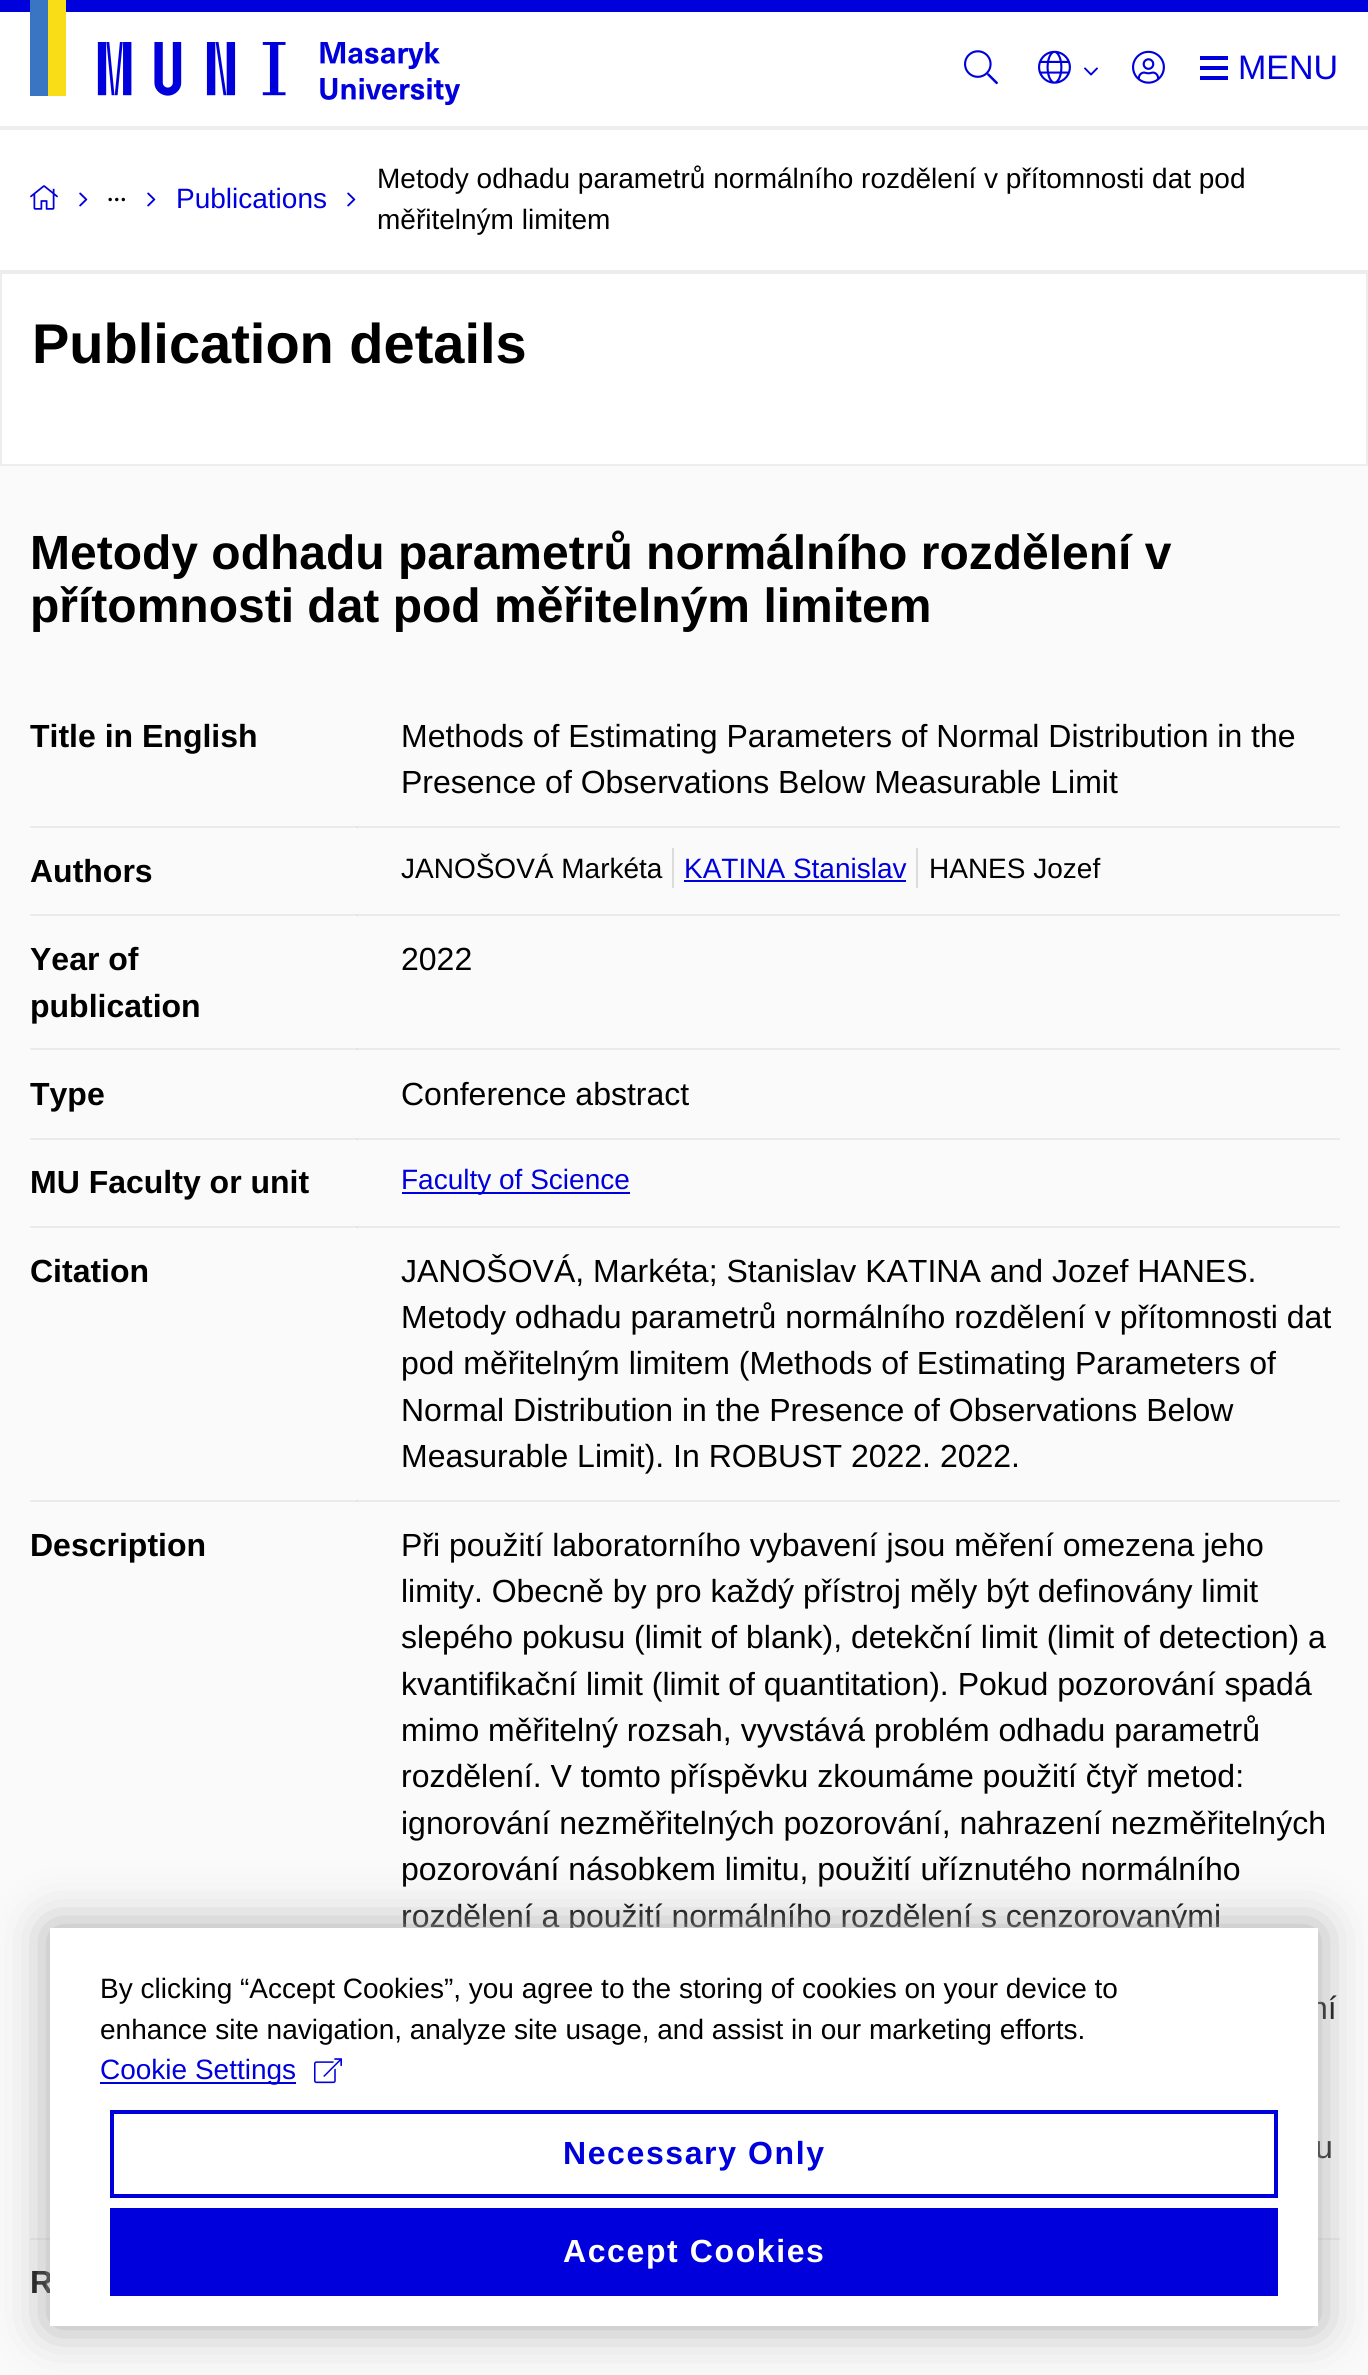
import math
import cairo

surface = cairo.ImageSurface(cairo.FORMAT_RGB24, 1368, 2375)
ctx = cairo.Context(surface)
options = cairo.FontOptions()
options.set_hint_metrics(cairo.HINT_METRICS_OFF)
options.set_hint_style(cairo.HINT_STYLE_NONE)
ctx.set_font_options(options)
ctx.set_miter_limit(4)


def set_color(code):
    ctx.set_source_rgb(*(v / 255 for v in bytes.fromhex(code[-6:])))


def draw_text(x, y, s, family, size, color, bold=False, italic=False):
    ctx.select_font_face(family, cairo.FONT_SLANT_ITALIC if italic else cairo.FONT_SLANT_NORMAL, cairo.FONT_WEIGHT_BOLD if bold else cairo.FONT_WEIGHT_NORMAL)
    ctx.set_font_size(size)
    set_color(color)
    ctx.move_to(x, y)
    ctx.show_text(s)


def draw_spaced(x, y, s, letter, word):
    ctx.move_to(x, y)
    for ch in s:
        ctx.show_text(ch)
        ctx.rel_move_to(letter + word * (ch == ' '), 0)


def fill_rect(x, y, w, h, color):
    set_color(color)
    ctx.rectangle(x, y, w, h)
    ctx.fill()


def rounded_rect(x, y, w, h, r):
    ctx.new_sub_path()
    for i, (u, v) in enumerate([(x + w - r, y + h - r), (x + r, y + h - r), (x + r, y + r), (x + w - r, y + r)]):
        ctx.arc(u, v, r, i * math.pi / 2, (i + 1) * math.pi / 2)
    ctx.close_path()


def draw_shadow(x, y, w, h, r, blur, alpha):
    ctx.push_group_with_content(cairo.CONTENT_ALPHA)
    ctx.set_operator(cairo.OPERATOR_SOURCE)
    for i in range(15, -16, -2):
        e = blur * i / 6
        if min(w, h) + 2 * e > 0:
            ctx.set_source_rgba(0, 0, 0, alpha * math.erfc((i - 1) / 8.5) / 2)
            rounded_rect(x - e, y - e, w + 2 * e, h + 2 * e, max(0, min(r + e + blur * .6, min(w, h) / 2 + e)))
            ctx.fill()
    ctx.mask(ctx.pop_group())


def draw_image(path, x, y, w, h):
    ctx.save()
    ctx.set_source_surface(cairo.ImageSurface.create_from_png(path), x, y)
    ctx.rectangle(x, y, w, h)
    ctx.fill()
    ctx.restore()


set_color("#fafafa")
ctx.paint()
fill_rect(30, 826, 1310, 2, "#ebebeb")
fill_rect(30, 914, 1310, 2, "#ebebeb")
fill_rect(30, 1048, 1310, 2, "#ebebeb")
fill_rect(30, 1138, 1310, 2, "#ebebeb")
fill_rect(30, 1226, 1310, 2, "#ebebeb")
fill_rect(30, 1500, 1310, 2, "#ebebeb")
fill_rect(30, 2238, 20, 2, "#ebebeb")
fill_rect(0, 12, 1368, 114, "#ffffff")
fill_rect(0, 0, 1368, 12, "#0000dc")
fill_rect(0, 126, 1368, 4, "#eeeeee")
draw_image("assets/img1.png", 30, 0, 430, 106)
draw_image("assets/img2.png", 964, 50, 34, 35)
draw_image("assets/img3.png", 1038, 50, 33, 34)
draw_image("assets/img4.png", 1084, 67, 14, 9)
draw_image("assets/img5.png", 1132, 50, 33, 34)
fill_rect(1200, 56, 28, 4, "#0000dc")
fill_rect(1200, 66, 28, 4, "#0000dc")
fill_rect(1200, 76, 28, 4, "#0000dc")
draw_text(1238, 79, "MENU", "Liberation Sans", 34, "#0000dc")
fill_rect(0, 130, 1368, 140, "#ffffff")
fill_rect(0, 270, 1368, 2, "#ededed")
draw_image("assets/img6.png", 30, 185, 28, 25)
draw_image("assets/img7.png", 79, 192, 9, 15)
draw_image("assets/img8.png", 108, 197, 17, 5)
draw_image("assets/img7.png", 147, 192, 9, 15)
draw_text(176, 208, "Publications", "Liberation Sans", 28, "#0000dc")
draw_image("assets/img7.png", 347, 192, 9, 15)
draw_text(377, 188, "Metody odhadu parametrů normálního rozdělení v přítomnosti dat pod", "Liberation Sans", 28, "#000000")
draw_text(377, 229, "měřitelným limitem", "Liberation Sans", 28, "#000000")
set_color("#ffffff")
ctx.rectangle(1, 273, 1366, 192)
ctx.fill_preserve()
set_color("#ededed")
ctx.stroke()
draw_text(32, 363, "Publication details", "Liberation Sans", 56, "#000000", bold=True)
draw_text(30, 569, "Metody odhadu parametrů normálního rozdělení v", "Liberation Sans", 48, "#000000", bold=True)
draw_text(30, 622, "přítomnosti dat pod měřitelným limitem", "Liberation Sans", 48, "#000000", bold=True)
draw_text(30, 747, "Title in English", "Liberation Sans", 32, "#000000", bold=True)
fill_rect(356, 826, 2, 2, "#e3e3e3")
draw_text(401, 747, "Methods of Estimating Parameters of Normal Distribution in the", "Liberation Sans", 32, "#000000")
draw_text(401, 793, "Presence of Observations Below Measurable Limit", "Liberation Sans", 32, "#000000")
draw_text(30, 882, "Authors", "Liberation Sans", 32, "#000000", bold=True)
fill_rect(356, 914, 2, 2, "#e3e3e3")
fill_rect(672, 848, 2, 40, "#dcdcdc")
draw_text(401, 878, "JANOŠOVÁ Markéta", "Liberation Sans", 28, "#000000")
fill_rect(916, 848, 2, 40, "#dcdcdc")
draw_text(684, 878, "KATINA Stanislav", "Liberation Sans", 28, "#0000dc")
fill_rect(684, 880, 222, 2, "#0000dc")
draw_text(929, 878, "HANES Jozef", "Liberation Sans", 28, "#000000")
draw_text(30, 970, "Year of", "Liberation Sans", 32, "#000000", bold=True)
draw_text(30, 1017, "publication", "Liberation Sans", 32, "#000000", bold=True)
fill_rect(356, 1048, 2, 2, "#e3e3e3")
draw_text(401, 970, "2022", "Liberation Sans", 32, "#000000")
draw_text(30, 1105, "Type", "Liberation Sans", 32, "#000000", bold=True)
fill_rect(356, 1138, 2, 2, "#e3e3e3")
draw_text(401, 1105, "Conference abstract", "Liberation Sans", 32, "#000000")
draw_text(30, 1193, "MU Faculty or unit", "Liberation Sans", 32, "#000000", bold=True)
fill_rect(356, 1226, 2, 2, "#e3e3e3")
fill_rect(402, 1192, 228, 2, "#0000dc")
draw_text(401, 1189, "Faculty of Science", "Liberation Sans", 28, "#0000dc")
draw_text(30, 1282, "Citation", "Liberation Sans", 32, "#000000", bold=True)
fill_rect(356, 1500, 2, 2, "#e3e3e3")
draw_text(401, 1282, "JANOŠOVÁ, Markéta; Stanislav KATINA and Jozef HANES.", "Liberation Sans", 32, "#000000")
draw_text(401, 1328, "Metody odhadu parametrů normálního rozdělení v přítomnosti dat", "Liberation Sans", 32, "#000000")
draw_text(401, 1374, "pod měřitelným limitem (Methods of Estimating Parameters of", "Liberation Sans", 32, "#000000")
draw_text(401, 1421, "Normal Distribution in the Presence of Observations Below", "Liberation Sans", 32, "#000000")
draw_text(401, 1467, "Measurable Limit). In ROBUST 2022. 2022.", "Liberation Sans", 32, "#000000")
draw_text(30, 1556, "Description", "Liberation Sans", 32, "#000000", bold=True)
fill_rect(1318, 2238, 22, 2, "#ebebeb")
draw_text(401, 1556, "Při použití laboratorního vybavení jsou měření omezena jeho", "Liberation Sans", 32, "#000000")
draw_text(401, 1602, "limity. Obecně by pro každý přístroj měly být definovány limit", "Liberation Sans", 32, "#000000")
draw_text(401, 1648, "slepého pokusu (limit of blank), detekční limit (limit of detection) a", "Liberation Sans", 32, "#000000")
draw_text(401, 1695, "kvantifikační limit (limit of quantitation). Pokud pozorování spadá", "Liberation Sans", 32, "#000000")
draw_text(401, 1741, "mimo měřitelný rozsah, vyvstává problém odhadu parametrů", "Liberation Sans", 32, "#000000")
draw_text(401, 1787, "rozdělení. V tomto příspěvku zkoumáme použití čtyř metod:", "Liberation Sans", 32, "#000000")
draw_text(401, 1834, "ignorování nezměřitelných pozorování, nahrazení nezměřitelných", "Liberation Sans", 32, "#000000")
draw_text(401, 1880, "pozorování násobkem limitu, použití uříznutého normálního", "Liberation Sans", 32, "#000000")
draw_text(401, 1927, "rozdělení a použití normálního rozdělení s cenzorovanými", "Liberation Sans", 32, "#000000")
draw_text(1310, 2019, "ní", "Liberation Sans", 32, "#000000")
draw_text(1315, 2158, "u", "Liberation Sans", 32, "#000000")
draw_text(30, 2293, "R", "Liberation Sans", 32, "#000000", bold=True)
set_color("#aaaaaa")
draw_shadow(50, 1928, 1268, 398, 0, 25, 1)
fill_rect(50, 1928, 1268, 398, "#ffffff")
draw_text(100, 1998, "By clicking “Accept Cookies”, you agree to the storing of cookies on your device to", "Liberation Sans", 28, "#000000")
draw_text(100, 2039, "enhance site navigation, analyze site usage, and assist in our marketing efforts.", "Liberation Sans", 28, "#000000")
fill_rect(100, 2082, 196, 2, "#0000dc")
draw_text(100, 2079, "Cookie Settings", "Liberation Sans", 28, "#0000dc")
draw_image("assets/img9.png", 314, 2058, 28, 26)
ctx.rectangle(112, 2112, 1164, 84)
ctx.set_line_width(4)
ctx.stroke()
ctx.select_font_face("Liberation Sans", cairo.FONT_SLANT_NORMAL, cairo.FONT_WEIGHT_BOLD)
ctx.set_font_size(32)
draw_spaced(563, 2164, "Necessary Only", 1.6, 0)
fill_rect(110, 2208, 1168, 88, "#0000dc")
set_color("#ffffff")
draw_spaced(563, 2262, "Accept Cookies", 1.6, 0)
surface.write_to_png("output.png")
